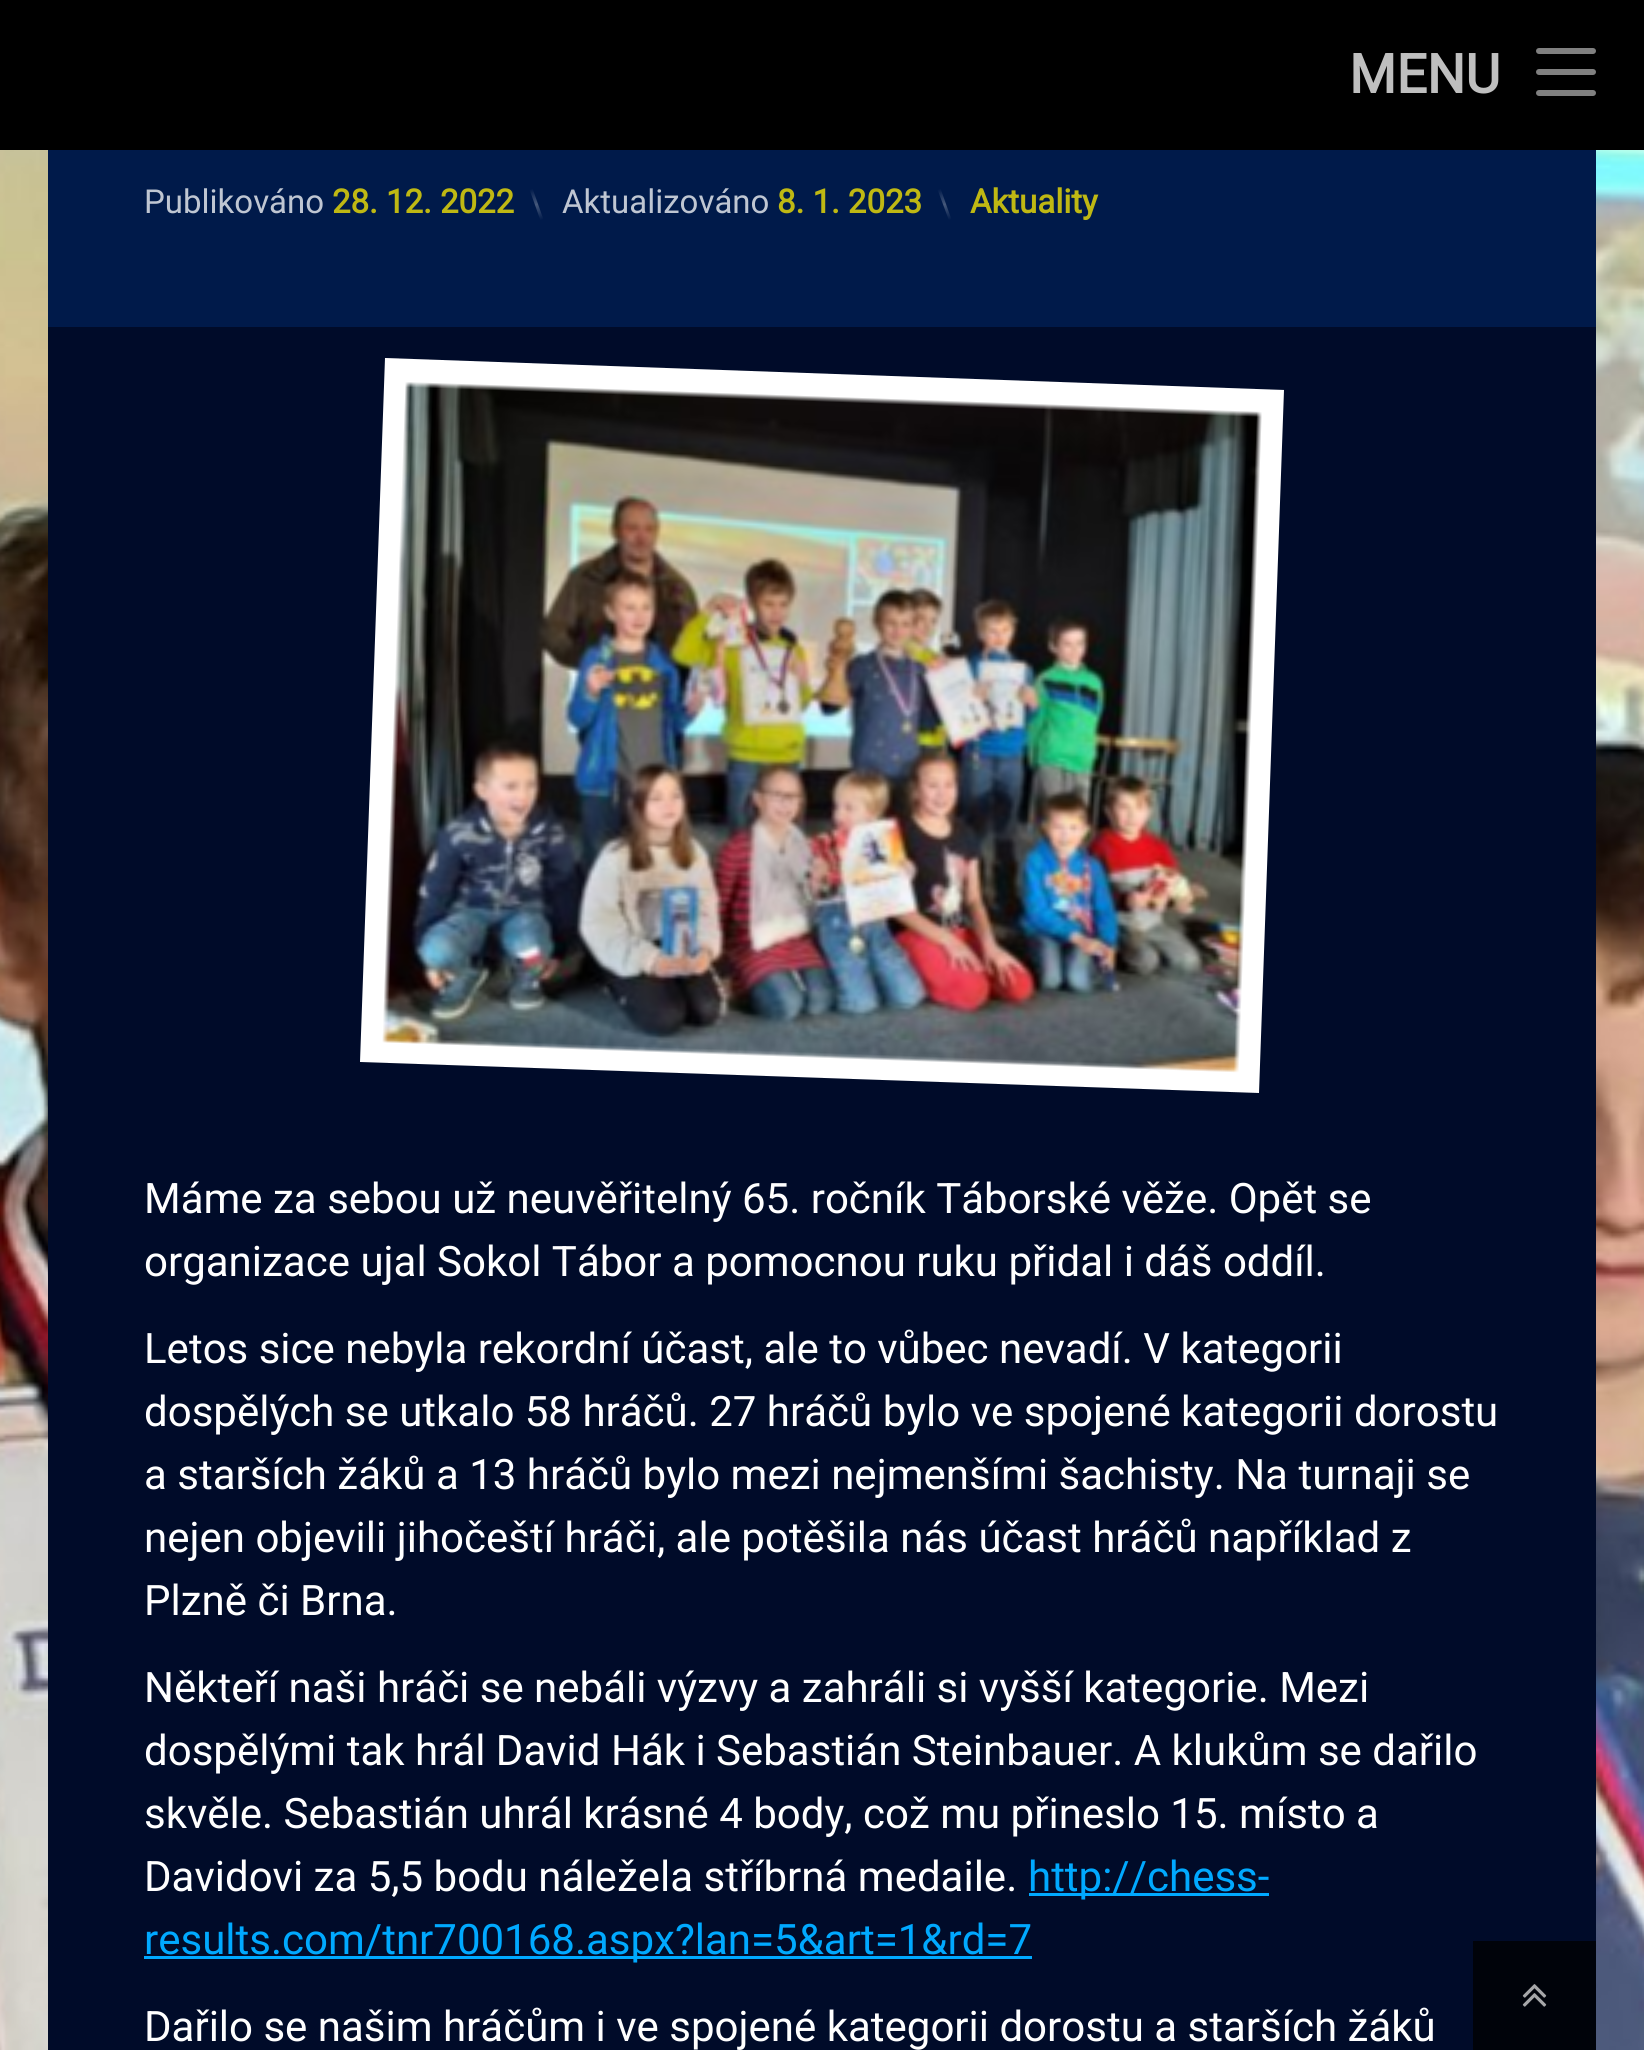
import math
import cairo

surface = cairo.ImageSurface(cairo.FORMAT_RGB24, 1644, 2050)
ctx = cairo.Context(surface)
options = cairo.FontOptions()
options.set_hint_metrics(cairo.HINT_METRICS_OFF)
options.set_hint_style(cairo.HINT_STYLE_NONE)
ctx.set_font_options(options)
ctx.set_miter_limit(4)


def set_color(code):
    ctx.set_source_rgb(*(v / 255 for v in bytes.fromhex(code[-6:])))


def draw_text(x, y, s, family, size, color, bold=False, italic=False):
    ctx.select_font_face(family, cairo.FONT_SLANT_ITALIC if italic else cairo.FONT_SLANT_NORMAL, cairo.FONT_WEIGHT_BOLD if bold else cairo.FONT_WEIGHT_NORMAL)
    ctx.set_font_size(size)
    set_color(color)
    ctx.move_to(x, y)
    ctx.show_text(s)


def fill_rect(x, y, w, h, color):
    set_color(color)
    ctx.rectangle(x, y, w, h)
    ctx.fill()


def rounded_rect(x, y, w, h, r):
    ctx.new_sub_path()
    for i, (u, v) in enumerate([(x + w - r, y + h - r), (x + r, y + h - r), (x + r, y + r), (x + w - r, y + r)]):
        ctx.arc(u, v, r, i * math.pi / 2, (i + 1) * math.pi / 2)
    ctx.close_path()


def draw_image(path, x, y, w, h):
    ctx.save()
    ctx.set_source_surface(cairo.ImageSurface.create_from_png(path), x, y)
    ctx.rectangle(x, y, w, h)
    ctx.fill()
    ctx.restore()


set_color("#ffffff")
ctx.paint()
draw_image("assets/img1.png", 0, 150, 1644, 1900)
fill_rect(0, 0, 1644, 150, "#000000")
draw_text(1349, 93, "MENU", "Roboto", 54, "#bfbfbf", bold=True)
set_color("#808080")
rounded_rect(1536, 48, 60, 6, 3)
ctx.fill()
rounded_rect(1536, 69, 60, 6, 3)
ctx.fill()
rounded_rect(1536, 90, 60, 6, 3)
ctx.fill()
fill_rect(48, 327, 1548, 1723, "#000b29")
fill_rect(48, 150, 1548, 177, "#001a4a")
draw_text(144, 213, "Publikováno", "Roboto", 33, "#bfc6d2")
draw_text(332, 213, "28. 12. 2022", "Roboto", 33, "#bfb813", bold=True)
gradient = cairo.LinearGradient(531, 189, 542, 220)
gradient.add_color_stop_rgba(0, 0, 0.102, 0.29, 1)
gradient.add_color_stop_rgba(0.5, 0.271, 0.345, 0.482, 1)
gradient.add_color_stop_rgba(1, 0, 0.102, 0.29, 1)
ctx.set_source(gradient)
ctx.new_path()
ctx.move_to(529.5, 189.5)
ctx.line_to(532.5, 188.5)
ctx.line_to(543.5, 219.5)
ctx.line_to(540.5, 220.5)
ctx.close_path()
ctx.fill()
draw_text(562, 213, "Aktualizováno", "Roboto", 33, "#bfc6d2")
draw_text(777, 213, "8. 1. 2023", "Roboto", 33, "#bfb813", bold=True)
gradient = cairo.LinearGradient(939, 189, 950, 220)
gradient.add_color_stop_rgba(0, 0, 0.102, 0.29, 1)
gradient.add_color_stop_rgba(0.5, 0.271, 0.345, 0.482, 1)
gradient.add_color_stop_rgba(1, 0, 0.102, 0.29, 1)
ctx.set_source(gradient)
ctx.new_path()
ctx.move_to(937.5, 189.5)
ctx.line_to(940.5, 188.5)
ctx.line_to(951.5, 219.5)
ctx.line_to(949, 220.5)
ctx.close_path()
ctx.fill()
draw_text(970, 213, "Aktuality", "Roboto", 33, "#bfb813", bold=True)
set_color("#ffffff")
ctx.new_path()
ctx.move_to(385, 358)
ctx.line_to(1284, 390)
ctx.line_to(1259, 1093)
ctx.line_to(360, 1062)
ctx.close_path()
ctx.fill()
draw_image("assets/img2.png", 382, 382, 880, 691)
draw_text(144, 1213, "Máme za sebou už neuvěřitelný 65. ročník Táborské věže. Opět se", "Roboto", 42, "#ffffff")
draw_text(144, 1276, "organizace ujal Sokol Tábor a pomocnou ruku přidal i dáš oddíl.", "Roboto", 42, "#ffffff")
draw_text(144, 1363, "Letos sice nebyla rekordní účast, ale to vůbec nevadí. V kategorii", "Roboto", 42, "#ffffff")
draw_text(144, 1426, "dospělých se utkalo 58 hráčů. 27 hráčů bylo ve spojené kategorii dorostu", "Roboto", 42, "#ffffff")
draw_text(144, 1489, "a starších žáků a 13 hráčů bylo mezi nejmenšími šachisty. Na turnaji se", "Roboto", 42, "#ffffff")
draw_text(144, 1552, "nejen objevili jihočeští hráči, ale potěšila nás účast hráčů například z", "Roboto", 42, "#ffffff")
draw_text(144, 1615, "Plzně či Brna.", "Roboto", 42, "#ffffff")
draw_text(144, 1702, "Někteří naši hráči se nebáli výzvy a zahráli si vyšší kategorie. Mezi", "Roboto", 42, "#ffffff")
draw_text(144, 1765, "dospělými tak hrál David Hák i Sebastián Steinbauer. A klukům se dařilo", "Roboto", 42, "#ffffff")
draw_text(144, 1828, "skvěle. Sebastián uhrál krásné 4 body, což mu přineslo 15. místo a", "Roboto", 42, "#ffffff")
draw_text(144, 1891, "Davidovi za 5,5 bodu náležela stříbrná medaile.", "Roboto", 42, "#ffffff")
fill_rect(1029, 1893, 240, 3, "#00a9ff")
draw_text(1028, 1891, "http://chess-", "Roboto", 42, "#00a9ff")
fill_rect(144, 1956, 888, 3, "#00a9ff")
draw_text(144, 1954, "results.com/tnr700168.aspx?lan=5&art=1&rd=7", "Roboto", 42, "#00a9ff")
draw_text(144, 2041, "Dařilo se našim hráčům i ve spojené kategorii dorostu a starších žáků", "Roboto", 42, "#ffffff")
fill_rect(1473, 1941, 123, 109, "#00030a")
draw_image("assets/img3.png", 1522, 1984, 25, 23)
surface.write_to_png("output.png")
